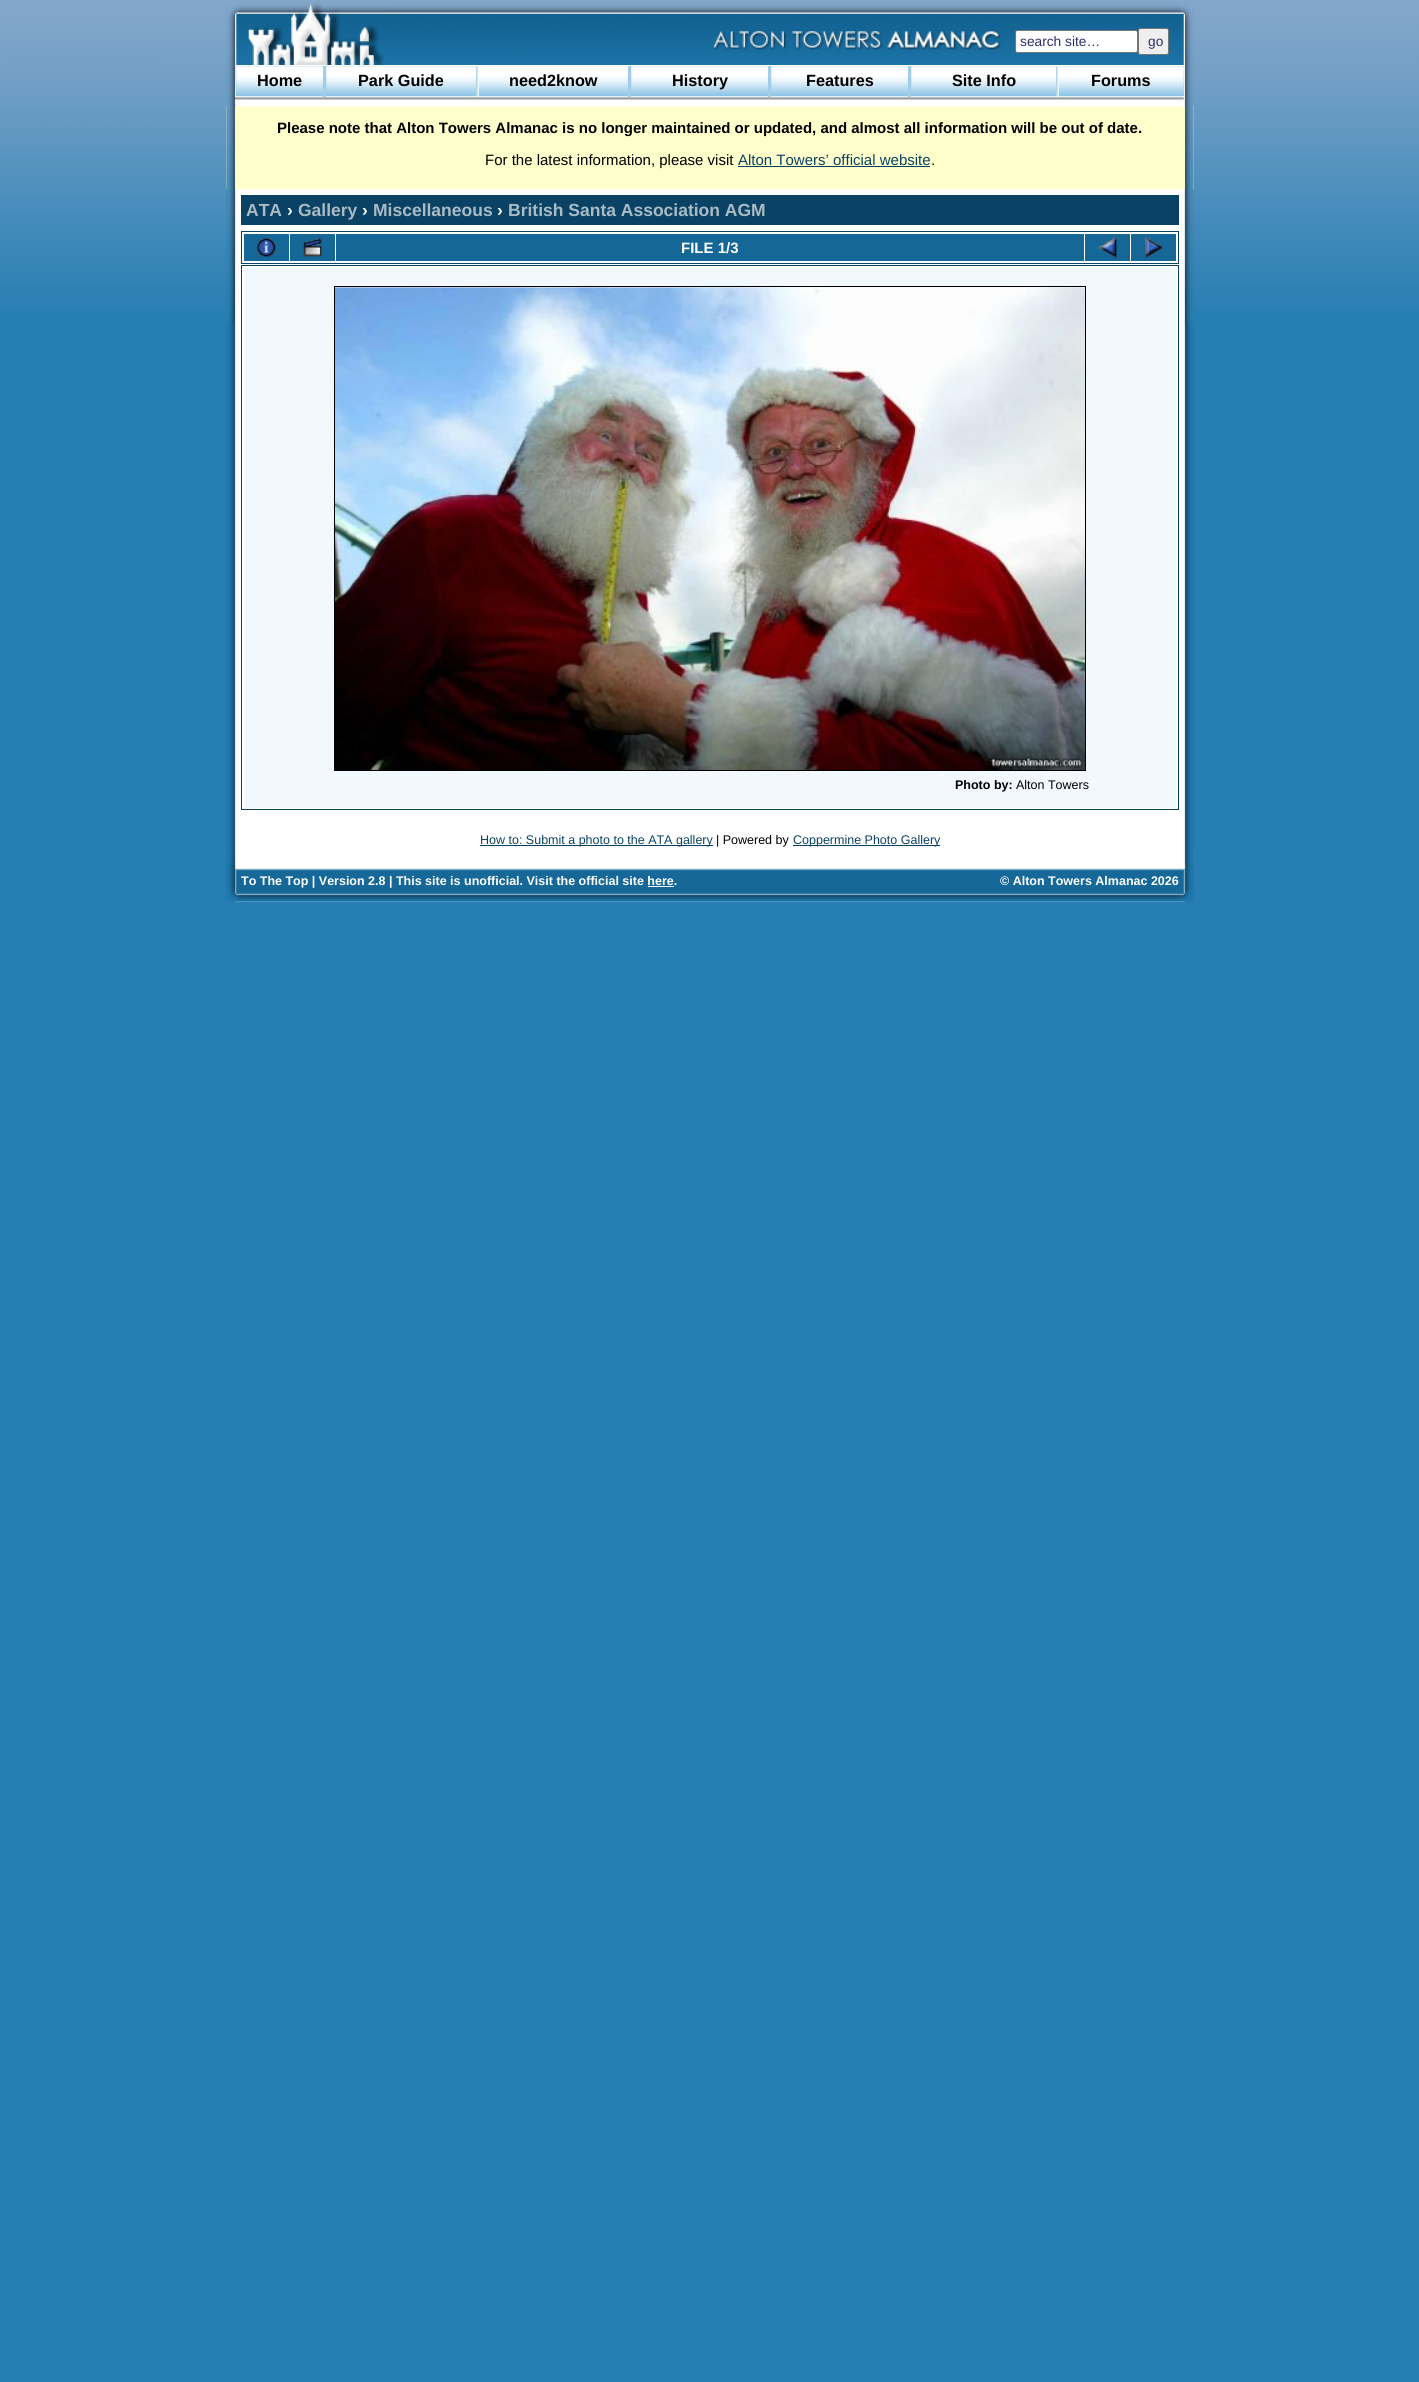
import math
import cairo

surface = cairo.ImageSurface(cairo.FORMAT_RGB24, 1419, 2382)
ctx = cairo.Context(surface)
options = cairo.FontOptions()
options.set_hint_metrics(cairo.HINT_METRICS_OFF)
options.set_hint_style(cairo.HINT_STYLE_NONE)
ctx.set_font_options(options)
ctx.set_miter_limit(4)


def set_color(code):
    ctx.set_source_rgb(*(v / 255 for v in bytes.fromhex(code[-6:])))


def draw_text(x, y, s, family, size, color, bold=False, italic=False):
    ctx.select_font_face(family, cairo.FONT_SLANT_ITALIC if italic else cairo.FONT_SLANT_NORMAL, cairo.FONT_WEIGHT_BOLD if bold else cairo.FONT_WEIGHT_NORMAL)
    ctx.set_font_size(size)
    set_color(color)
    ctx.move_to(x, y)
    ctx.show_text(s)


def fill_rect(x, y, w, h, color):
    set_color(color)
    ctx.rectangle(x, y, w, h)
    ctx.fill()


def rounded_rect(x, y, w, h, r):
    ctx.new_sub_path()
    for i, (u, v) in enumerate([(x + w - r, y + h - r), (x + r, y + h - r), (x + r, y + r), (x + w - r, y + r)]):
        ctx.arc(u, v, r, i * math.pi / 2, (i + 1) * math.pi / 2)
    ctx.close_path()


def draw_image(path, x, y, w, h):
    ctx.save()
    ctx.set_source_surface(cairo.ImageSurface.create_from_png(path), x, y)
    ctx.rectangle(x, y, w, h)
    ctx.fill()
    ctx.restore()


set_color("#267eb2")
ctx.paint()
draw_image("assets/img1.png", 0, 0, 1419, 310)
draw_image("assets/img2.png", 226, 0, 968, 902)
fill_rect(226, 106, 968, 83, "#ffffcc")
draw_image("assets/img4.png", 226, 0, 968, 107)
draw_image("assets/img17.png", 226, 195, 968, 652)
draw_image("assets/img3.png", 226, 0, 9, 325)
draw_image("assets/img5.png", 241, 2, 148, 63)
draw_image("assets/img6.png", 713, 30, 288, 20)
set_color("#ffffff")
rounded_rect(1015.5, 30.5, 122, 22, 2)
ctx.fill_preserve()
set_color("#767676")
ctx.set_line_width(1)
ctx.stroke()
draw_text(1020, 46, "search site…", "Liberation Sans", 13.75, "#2e3066")
set_color("#efefef")
rounded_rect(1138.5, 28.5, 30, 26, 2)
ctx.fill_preserve()
set_color("#767676")
ctx.stroke()
draw_text(1148, 46, "go", "Liberation Sans", 13.75, "#2e3066")
fill_rect(236, 65, 948, 1, "#ffffff")
fill_rect(476, 66, 583, 26, "#ffffff")
fill_rect(236, 66, 87, 30, "#8ec5e7")
draw_image("assets/img7.png", 236, 66, 87, 31)
draw_text(257, 86, "Home", "Liberation Sans", 16.25, "#000000", bold=True)
fill_rect(323, 66, 3, 31, "#a1cfea")
fill_rect(326, 66, 150, 30, "#8ec5e7")
draw_image("assets/img8.png", 326, 66, 151, 31)
draw_text(358, 86, "Park Guide", "Liberation Sans", 16.25, "#000000", bold=True)
draw_image("assets/img9.png", 476, 66, 2, 31)
draw_image("assets/img10.png", 478, 66, 150, 31)
draw_text(509, 86, "need2know", "Liberation Sans", 16.25, "#000000", bold=True)
fill_rect(628, 66, 3, 31, "#a1cfea")
fill_rect(631, 66, 137, 30, "#8ec5e7")
draw_image("assets/img11.png", 631, 66, 137, 31)
draw_text(672, 86, "History", "Liberation Sans", 16.25, "#000000", bold=True)
fill_rect(768, 66, 3, 31, "#a1cfea")
fill_rect(771, 66, 137, 30, "#8ec5e7")
draw_image("assets/img12.png", 771, 66, 137, 31)
draw_text(806, 86, "Features", "Liberation Sans", 16.25, "#000000", bold=True)
fill_rect(908, 66, 3, 31, "#a1cfea")
fill_rect(911, 66, 145, 30, "#8ec5e7")
draw_image("assets/img13.png", 911, 66, 146, 31)
draw_text(952, 86, "Site Info", "Liberation Sans", 16.25, "#000000", bold=True)
draw_image("assets/img9.png", 1056, 66, 2, 31)
fill_rect(1059, 66, 125, 30, "#8ec5e7")
draw_image("assets/img14.png", 1058, 66, 126, 31)
draw_text(1091, 86, "Forums", "Liberation Sans", 16.25, "#000000", bold=True)
draw_image("assets/img15.png", 235, 97, 949, 7)
draw_image("assets/img16.png", 1185, 0, 9, 325)
draw_text(277, 133, "Please note that Alton Towers Almanac is no longer maintained or updated, and almost all information will be out of date.", "Liberation Sans", 15, "#000000", bold=True)
draw_text(485, 165, "For the latest information, please visit", "Liberation Sans", 15, "#000000")
draw_text(738, 165, "Alton Towers’ official website", "Liberation Sans", 15, "#094264")
fill_rect(738, 166, 192, 1, "#094264")
draw_text(931, 165, ".", "Liberation Sans", 15, "#000000")
fill_rect(241, 195, 938, 30, "#094264")
draw_text(246, 216, "ATA", "Liberation Sans", 17.5, "#aabbc5", bold=True)
draw_text(287, 216, "›", "Liberation Sans", 17.5, "#ffffff", bold=True)
draw_text(298, 216, "Gallery", "Liberation Sans", 17.5, "#aabbc5", bold=True)
draw_text(362, 216, "›", "Liberation Sans", 17.5, "#ffffff", bold=True)
draw_text(373, 216, "Miscellaneous", "Liberation Sans", 17.5, "#aabbc5", bold=True)
draw_text(497, 216, "›", "Liberation Sans", 17.5, "#ffffff", bold=True)
draw_text(508, 216, "British Santa Association AGM", "Liberation Sans", 17.5, "#aabbc5", bold=True)
ctx.rectangle(241.5, 231.5, 937, 32)
set_color("#094264")
ctx.stroke()
fill_rect(244, 234, 45, 27, "#156798")
draw_image("assets/img18.png", 257, 238, 19, 19)
fill_rect(290, 234, 45, 27, "#156798")
draw_image("assets/img19.png", 303, 238, 19, 19)
fill_rect(336, 234, 748, 27, "#156798")
draw_text(681, 253, "FILE 1/3", "Liberation Sans", 15, "#ffffff", bold=True)
fill_rect(1085, 234, 45, 27, "#156798")
draw_image("assets/img20.png", 1098, 237, 19, 21)
fill_rect(1131, 234, 45, 27, "#156798")
draw_image("assets/img21.png", 1144, 237, 19, 21)
ctx.rectangle(241.5, 265.5, 937, 544)
set_color("#094264")
ctx.stroke()
fill_rect(244, 268, 932, 540, "#f1f9ff")
ctx.rectangle(334.5, 286.5, 751, 484)
set_color("#000000")
ctx.stroke()
draw_image("assets/img22.png", 335, 287, 750, 483)
draw_text(955, 789, "Photo by:", "Liberation Sans", 12.5, "#000000", bold=True)
draw_text(1016, 789, "Alton Towers", "Liberation Sans", 12.5, "#000000")
fill_rect(480, 845, 233, 1, "#094264")
draw_text(480, 844, "How to: Submit a photo to the ATA gallery", "Liberation Sans", 12.5, "#094264")
draw_text(716, 844, "| Powered by", "Liberation Sans", 12.5, "#000000")
fill_rect(793, 845, 147, 1, "#094264")
draw_text(793, 844, "Coppermine Photo Gallery", "Liberation Sans", 12.5, "#094264")
draw_image("assets/img23.png", 226, 863, 968, 39)
draw_text(241, 885, "To The Top | Version 2.8 | This site is unofficial. Visit the official site here.", "Liberation Sans", 12.5, "#ffffff", bold=True)
fill_rect(648, 886, 26, 1, "#ffffff")
draw_text(1000, 885, "© Alton Towers Almanac 2026", "Liberation Sans", 12.5, "#ffffff", bold=True)
surface.write_to_png("output.png")
